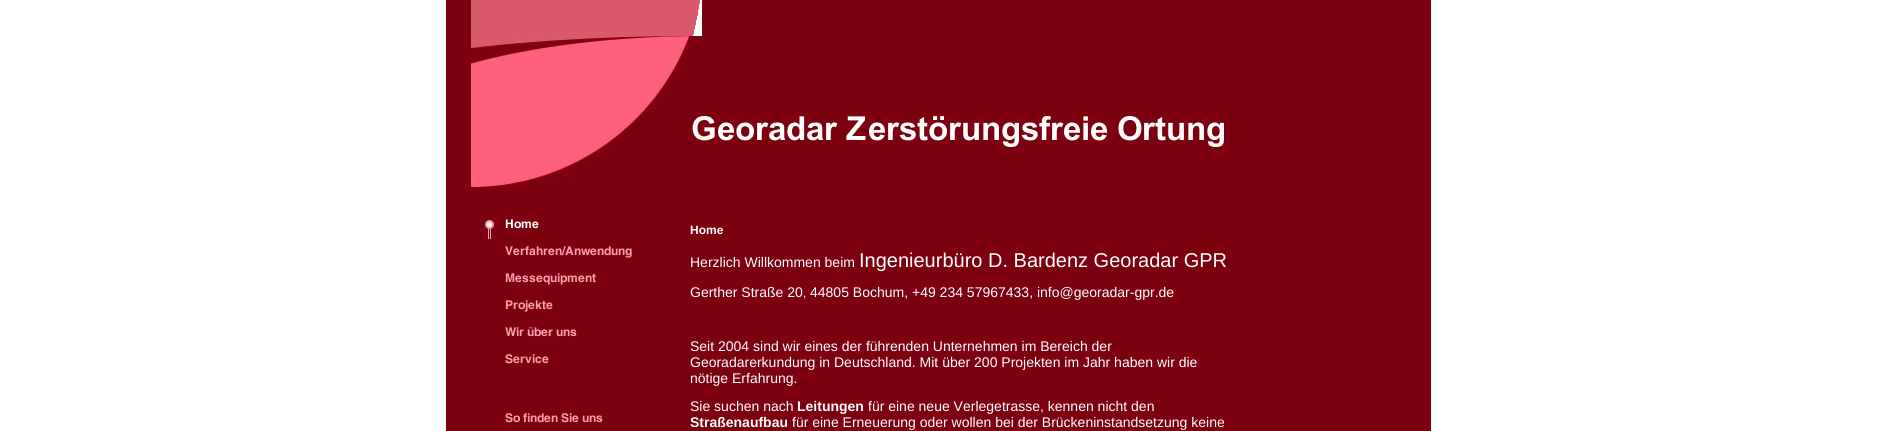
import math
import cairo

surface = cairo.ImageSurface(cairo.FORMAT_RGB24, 1877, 431)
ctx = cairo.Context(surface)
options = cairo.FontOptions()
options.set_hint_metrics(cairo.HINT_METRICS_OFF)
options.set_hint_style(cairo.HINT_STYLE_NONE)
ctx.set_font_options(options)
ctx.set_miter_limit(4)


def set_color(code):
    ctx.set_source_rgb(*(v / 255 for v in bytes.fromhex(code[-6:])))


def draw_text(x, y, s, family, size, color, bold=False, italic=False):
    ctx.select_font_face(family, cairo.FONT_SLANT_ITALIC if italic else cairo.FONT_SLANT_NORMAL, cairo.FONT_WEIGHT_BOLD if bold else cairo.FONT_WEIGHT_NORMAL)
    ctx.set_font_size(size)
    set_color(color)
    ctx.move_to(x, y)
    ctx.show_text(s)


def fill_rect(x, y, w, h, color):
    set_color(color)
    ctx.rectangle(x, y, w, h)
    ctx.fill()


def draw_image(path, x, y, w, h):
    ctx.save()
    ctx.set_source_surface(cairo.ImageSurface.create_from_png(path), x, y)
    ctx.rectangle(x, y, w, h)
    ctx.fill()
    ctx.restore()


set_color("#ffffff")
ctx.paint()
fill_rect(446, 0, 985, 431, "#7c000f")
fill_rect(471, 0, 219, 36, "#d9596c")
draw_image("assets/img1.png", 471, 36, 219, 151)
draw_image("assets/img2.png", 485, 219, 54, 20)
draw_image("assets/img3.png", 505, 246, 127, 12)
draw_image("assets/img4.png", 505, 273, 91, 12)
draw_image("assets/img5.png", 505, 300, 48, 12)
draw_image("assets/img6.png", 505, 327, 72, 10)
draw_image("assets/img7.png", 505, 354, 44, 10)
draw_image("assets/img8.png", 505, 413, 98, 10)
draw_image("assets/img9.png", 690, 0, 12, 36)
draw_image("assets/img10.png", 692, 116, 532, 31)
draw_text(690, 234, "Home", "Liberation Sans", 12, "#ffffff", bold=True)
draw_text(690, 267, "Herzlich Willkommen beim", "Liberation Sans", 14, "#ffffff")
draw_text(859, 267, "Ingenieurbüro D. Bardenz Georadar GPR", "Liberation Sans", 20, "#ffffff")
draw_text(690, 297, "Gerther Straße 20", "Liberation Sans", 14, "#ffffff")
draw_text(803, 297, ",", "Liberation Sans", 12, "#ffffff")
draw_text(810, 297, "44805 Bochum, +49 234 57967433, info@georadar-gpr.de", "Liberation Sans", 14, "#ffffff")
draw_text(690, 351, "Seit 2004 sind wir eines der führenden Unternehmen im Bereich der", "Liberation Sans", 14, "#ffffff")
draw_text(690, 367, "Georadarerkundung in Deutschland. Mit über 200 Projekten im Jahr haben wir die", "Liberation Sans", 14, "#ffffff")
draw_text(690, 383, "nötige Erfahrung.", "Liberation Sans", 14, "#ffffff")
draw_text(690, 411, "Sie suchen nach", "Liberation Sans", 14, "#ffffff")
draw_text(797, 411, "Leitungen", "Liberation Sans", 14, "#ffffff", bold=True)
draw_text(868, 411, "für eine neue Verlegetrasse, kennen nicht den", "Liberation Sans", 14, "#ffffff")
draw_text(690, 427, "Straßenaufbau", "Liberation Sans", 14, "#ffffff", bold=True)
draw_text(792, 427, "für eine Erneuerung oder wollen bei der Brückeninstandsetzung keine", "Liberation Sans", 14, "#ffffff")
surface.write_to_png("output.png")
